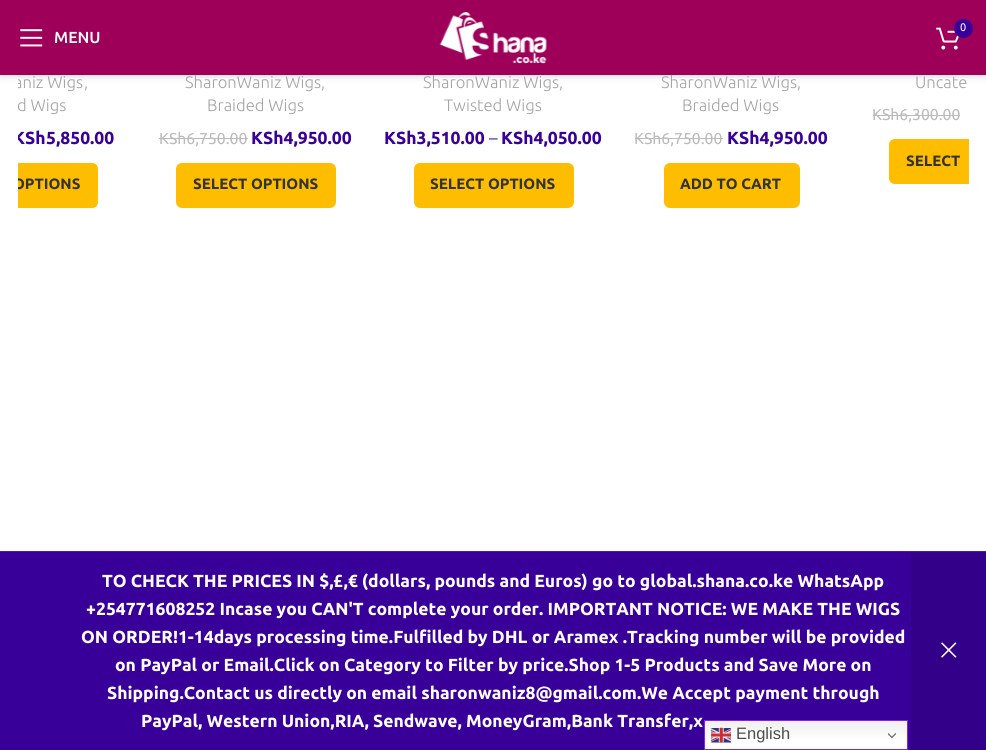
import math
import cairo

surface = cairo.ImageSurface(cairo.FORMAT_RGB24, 986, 750)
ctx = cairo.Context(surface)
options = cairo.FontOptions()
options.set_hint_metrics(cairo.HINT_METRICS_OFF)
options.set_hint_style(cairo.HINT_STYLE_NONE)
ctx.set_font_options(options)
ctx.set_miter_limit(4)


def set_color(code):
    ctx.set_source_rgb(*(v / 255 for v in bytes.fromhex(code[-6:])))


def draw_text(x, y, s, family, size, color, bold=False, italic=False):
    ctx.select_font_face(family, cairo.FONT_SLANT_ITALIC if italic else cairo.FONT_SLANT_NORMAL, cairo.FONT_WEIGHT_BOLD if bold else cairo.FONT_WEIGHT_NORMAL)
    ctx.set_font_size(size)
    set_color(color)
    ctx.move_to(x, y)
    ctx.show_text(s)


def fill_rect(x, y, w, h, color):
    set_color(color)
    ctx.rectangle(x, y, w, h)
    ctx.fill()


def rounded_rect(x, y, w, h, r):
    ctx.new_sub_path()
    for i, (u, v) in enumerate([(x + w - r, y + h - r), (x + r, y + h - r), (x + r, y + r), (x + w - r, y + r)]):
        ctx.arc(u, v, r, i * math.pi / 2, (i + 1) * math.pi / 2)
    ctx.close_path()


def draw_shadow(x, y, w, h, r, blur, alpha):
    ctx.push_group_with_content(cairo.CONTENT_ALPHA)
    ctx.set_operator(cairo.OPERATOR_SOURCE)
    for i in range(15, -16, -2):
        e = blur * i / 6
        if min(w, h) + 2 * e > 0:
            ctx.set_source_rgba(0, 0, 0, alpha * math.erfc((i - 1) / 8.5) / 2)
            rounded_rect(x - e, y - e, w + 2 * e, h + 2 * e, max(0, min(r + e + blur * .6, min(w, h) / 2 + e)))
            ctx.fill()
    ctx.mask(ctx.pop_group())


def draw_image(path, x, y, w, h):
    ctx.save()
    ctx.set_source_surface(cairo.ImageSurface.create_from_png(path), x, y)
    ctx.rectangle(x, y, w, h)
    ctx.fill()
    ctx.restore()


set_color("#ffffff")
ctx.paint()
set_color("#000000")
draw_shadow(0, 1, 986, 75, 0, 2, 0.1)
draw_shadow(0, 1, 986, 75, 0, 5, 0.1)
fill_rect(0, 0, 986, 75, "#9e0059")
draw_image("assets/img1.png", 439, 12, 108, 52)
draw_image("assets/img2.png", 936, 27, 23, 23)
set_color("#390099")
ctx.arc(963.5, 28.5, 9.5, 0, 2 * math.pi)
ctx.fill()
draw_text(960, 31, "0", "Ubuntu", 11, "#ffffff")
draw_image("assets/img3.png", 20, 29, 23, 18)
draw_text(54, 43, "MENU", "Ubuntu Medium", 16, "#ffffff")
ctx.save()
ctx.rectangle(18, 0, 951, 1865)
ctx.clip()
draw_text(14, 88, "aniz Wigs", "Ubuntu Light", 16.6, "#a5a5a5")
ctx.restore()
draw_text(84, 88, ",", "Ubuntu Light", 16.6, "#a5a5a5")
draw_text(17, 111, "d Wigs", "Ubuntu Light", 16.6, "#a5a5a5")
ctx.save()
ctx.rectangle(18, 0, 951, 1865)
ctx.clip()
draw_text(13, 144, "KSh", "Ubuntu", 17.5, "#390099", bold=True)
ctx.restore()
draw_text(46, 144, "5,850.00", "Ubuntu", 17.5, "#390099", bold=True)
set_color("#ffbd00")
ctx.new_path()
ctx.move_to(18, 163)
ctx.line_to(92, 163)
ctx.curve_to(95.5, 163, 98, 165.5, 98, 169)
ctx.line_to(98, 202)
ctx.curve_to(98, 205.5, 95.5, 208, 92, 208)
ctx.line_to(18, 208)
ctx.close_path()
ctx.fill()
ctx.save()
ctx.rectangle(18, 0, 951, 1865)
ctx.clip()
draw_text(13, 189, "OPTIONS", "Ubuntu", 15, "#333333", bold=True)
ctx.restore()
draw_text(185, 88, "SharonWaniz Wigs,", "Ubuntu Light", 16.6, "#a5a5a5")
draw_text(207, 111, "Braided Wigs", "Ubuntu Light", 16.6, "#a5a5a5")
draw_text(159, 144, "KSh6,750.00", "Ubuntu", 15.75, "#bbbbbb")
fill_rect(159, 138, 89, 1, "#bbbbbb")
draw_text(251, 144, "KSh4,950.00", "Ubuntu", 17.5, "#390099", bold=True)
set_color("#ffbd00")
rounded_rect(176, 163, 160, 45, 6)
ctx.fill()
draw_text(193, 189, "SELECT OPTIONS", "Ubuntu", 15, "#333333", bold=True)
draw_text(423, 88, "SharonWaniz Wigs,", "Ubuntu Light", 16.6, "#a5a5a5")
draw_text(444, 111, "Twisted Wigs", "Ubuntu Light", 16.6, "#a5a5a5")
draw_text(384, 144, "KSh3,510.00", "Ubuntu", 17.5, "#390099", bold=True)
draw_text(489, 144, "–", "Ubuntu Light", 17.5, "#390099")
draw_text(501, 144, "KSh4,050.00", "Ubuntu", 17.5, "#390099", bold=True)
set_color("#ffbd00")
rounded_rect(414, 163, 160, 45, 6)
ctx.fill()
draw_text(430, 189, "SELECT OPTIONS", "Ubuntu", 15, "#333333", bold=True)
draw_text(661, 88, "SharonWaniz Wigs,", "Ubuntu Light", 16.6, "#a5a5a5")
draw_text(682, 111, "Braided Wigs", "Ubuntu Light", 16.6, "#a5a5a5")
draw_text(634, 144, "KSh6,750.00", "Ubuntu", 15.75, "#bbbbbb")
fill_rect(635, 138, 88, 1, "#bbbbbb")
draw_text(727, 144, "KSh4,950.00", "Ubuntu", 17.5, "#390099", bold=True)
set_color("#ffbd00")
rounded_rect(664, 163, 136, 45, 6)
ctx.fill()
draw_text(680, 189, "ADD TO CART", "Ubuntu", 15, "#333333", bold=True)
draw_text(915, 88, "Uncate", "Ubuntu Light", 16.6, "#a5a5a5")
draw_text(872, 120, "KSh6,300.00", "Ubuntu", 15.75, "#bbbbbb")
fill_rect(873, 115, 87, 1, "#bbbbbb")
set_color("#ffbd00")
ctx.new_path()
ctx.move_to(895, 139)
ctx.line_to(969, 139)
ctx.line_to(969, 184)
ctx.line_to(895, 184)
ctx.curve_to(891.5, 184, 889, 181.5, 889, 178)
ctx.line_to(889, 145)
ctx.curve_to(889, 141.5, 891.5, 139, 895, 139)
ctx.close_path()
ctx.fill()
draw_text(906, 166, "SELECT", "Ubuntu", 15, "#333333", bold=True)
fill_rect(0, 552, 986, 198, "#390099")
fill_rect(0, 551, 986, 1, "#4d1aa3")
draw_text(102, 587, "TO CHECK THE PRICES IN $,£,€ (dollars, pounds and Euros) go to global.shana.co.ke WhatsApp", "Ubuntu", 17.5, "#ffffff", bold=True)
fill_rect(911, 553, 75, 197, "#33008a")
draw_image("assets/img4.png", 941, 642, 16, 16)
draw_text(86, 615, "+254771608252 Incase you CAN'T complete your order. IMPORTANT NOTICE: WE MAKE THE WIGS", "Ubuntu", 17.5, "#ffffff", bold=True)
draw_text(81, 643, "ON ORDER!1-14days processing time.Fulfilled by DHL or Aramex .Tracking number will be provided", "Ubuntu", 17.5, "#ffffff", bold=True)
draw_text(115, 671, "on PayPal or Email.Click on Category to Filter by price.Shop 1-5 Products and Save More on", "Ubuntu", 17.5, "#ffffff", bold=True)
draw_text(107, 699, "Shipping.Contact us directly on email sharonwaniz8@gmail.com.We Accept payment through", "Ubuntu", 17.5, "#ffffff", bold=True)
draw_text(141, 727, "PayPal, Western Union,RIA, Sendwave, MoneyGram,Bank Transfer,x", "Ubuntu", 17.5, "#ffffff", bold=True)
gradient = cairo.LinearGradient(806, 720, 806, 750)
gradient.add_color_stop_rgba(0, 0.937, 0.937, 0.937, 1)
gradient.add_color_stop_rgba(0.7, 1, 1, 1, 1)
ctx.set_source(gradient)
ctx.rectangle(705, 721, 202, 28)
ctx.fill()
ctx.rectangle(704.5, 720.5, 203, 29)
set_color("#8224e3")
ctx.set_line_width(1)
ctx.stroke()
draw_image("assets/img5.png", 711, 727, 20, 16)
draw_text(736, 739, "English", "Liberation Sans", 16.5, "#4c4c4c")
draw_image("assets/img6.png", 888, 733, 8, 6)
surface.write_to_png("output.png")
